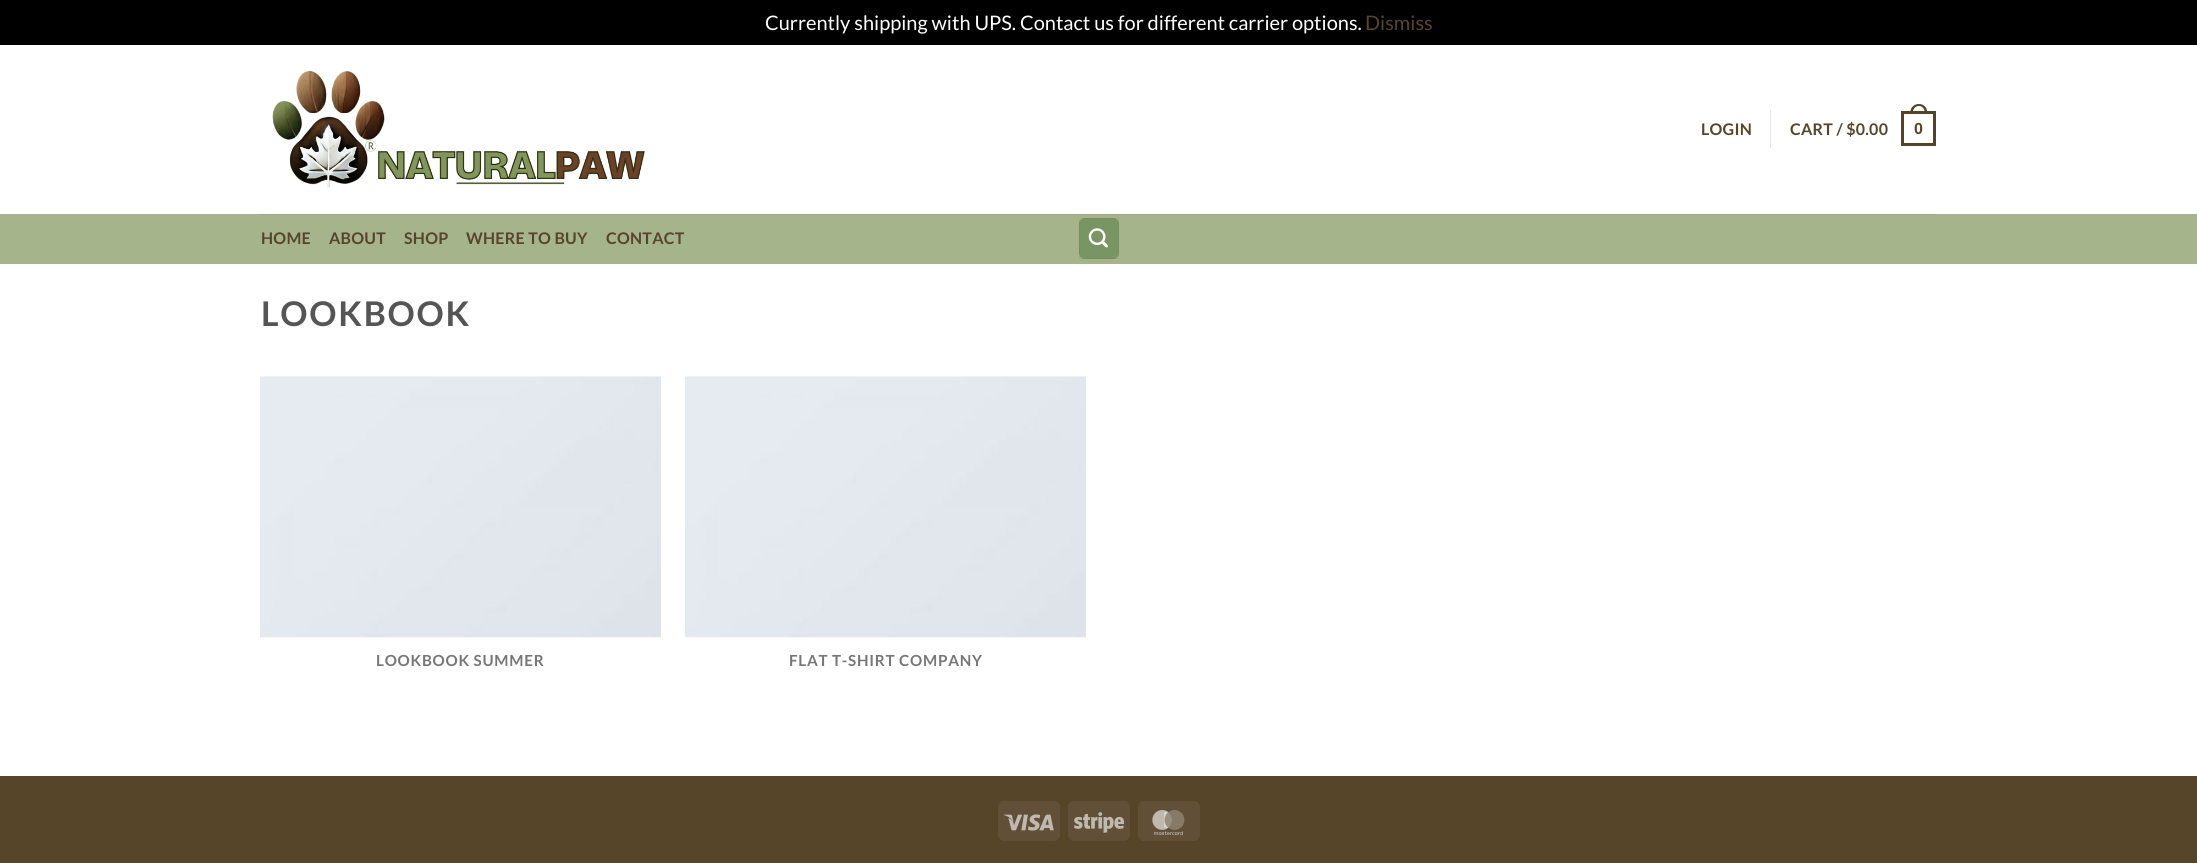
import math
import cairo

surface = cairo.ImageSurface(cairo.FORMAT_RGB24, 2197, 863)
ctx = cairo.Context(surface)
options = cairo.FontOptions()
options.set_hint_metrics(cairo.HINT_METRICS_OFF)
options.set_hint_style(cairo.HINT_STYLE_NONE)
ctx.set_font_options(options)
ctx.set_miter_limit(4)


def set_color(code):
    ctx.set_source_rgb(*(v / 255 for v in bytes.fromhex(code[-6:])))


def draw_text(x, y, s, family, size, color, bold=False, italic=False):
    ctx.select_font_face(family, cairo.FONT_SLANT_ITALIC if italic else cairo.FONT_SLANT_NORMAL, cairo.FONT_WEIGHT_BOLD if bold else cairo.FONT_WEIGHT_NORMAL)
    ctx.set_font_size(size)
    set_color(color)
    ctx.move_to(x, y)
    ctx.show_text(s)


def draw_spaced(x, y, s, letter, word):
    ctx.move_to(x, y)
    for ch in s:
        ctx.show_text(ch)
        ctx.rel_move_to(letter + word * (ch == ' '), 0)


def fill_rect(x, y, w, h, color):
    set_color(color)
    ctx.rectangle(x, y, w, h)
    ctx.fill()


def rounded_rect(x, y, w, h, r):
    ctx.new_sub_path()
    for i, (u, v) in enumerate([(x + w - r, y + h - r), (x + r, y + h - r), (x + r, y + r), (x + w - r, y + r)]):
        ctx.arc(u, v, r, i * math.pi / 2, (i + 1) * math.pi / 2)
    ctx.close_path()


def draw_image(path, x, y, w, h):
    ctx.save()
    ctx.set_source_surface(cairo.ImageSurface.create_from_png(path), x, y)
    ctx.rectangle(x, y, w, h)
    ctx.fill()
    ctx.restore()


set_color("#000000")
ctx.paint()
draw_text(765, 30, "Currently shipping with UPS. Contact us for different carrier options.", "Lato", 20, "#ffffff")
draw_text(1365, 30, "Dismiss", "Lato", 20, "#57452a")
fill_rect(0, 45, 2197, 731, "#ffffff")
draw_image("assets/img1.png", 272, 71, 373, 117)
ctx.select_font_face("Lato", cairo.FONT_SLANT_NORMAL, cairo.FONT_WEIGHT_BOLD)
ctx.set_font_size(16)
set_color("#57452a")
draw_spaced(1701, 135, "LOGIN", 0.25, 0)
fill_rect(1770, 110, 1, 38, "#e6e6e6")
set_color("#57452a")
draw_spaced(1790, 135, "CART / $0.00", 0.25, 0)
ctx.rectangle(1902.5, 112.5, 32, 32)
set_color("#534328")
ctx.set_line_width(3)
ctx.stroke()
ctx.set_fill_rule(cairo.FILL_RULE_EVEN_ODD)
ctx.new_path()
ctx.move_to(1919, 104)
ctx.curve_to(1924.5, 104, 1927.5, 108.5, 1927.5, 114)
ctx.line_to(1910, 114)
ctx.curve_to(1910, 108.5, 1913, 104, 1919, 104)
ctx.close_path()
ctx.move_to(1919, 106)
ctx.curve_to(1923, 106, 1925, 110, 1925, 114)
ctx.line_to(1912.5, 114)
ctx.curve_to(1912.5, 110, 1914.5, 106, 1919, 106)
ctx.close_path()
ctx.fill()
ctx.select_font_face("Liberation Sans", cairo.FONT_SLANT_NORMAL, cairo.FONT_WEIGHT_BOLD)
set_color("#57452a")
draw_spaced(1914, 134, "0", 0.25, 0)
fill_rect(0, 214, 2197, 50, "#a6b48b")
fill_rect(261, 214, 1675, 1, "#9da985")
ctx.select_font_face("Lato", cairo.FONT_SLANT_NORMAL, cairo.FONT_WEIGHT_BOLD)
set_color("#57452a")
draw_spaced(261, 244, "HOME", 0.25, 0)
draw_spaced(329, 244, "ABOUT", 0.25, 0)
draw_spaced(404, 244, "SHOP", 0.25, 0)
draw_spaced(466, 244, "WHERE TO BUY", 0.25, 0)
draw_spaced(606, 244, "CONTACT", 0.25, 0)
set_color("#799564")
rounded_rect(1079, 218, 40, 41, 6)
ctx.fill()
ctx.rectangle(1079.5, 218.5, 39, 40)
ctx.set_source_rgba(0, 0, 0, 0.05)
ctx.set_line_width(1)
ctx.stroke()
draw_image("assets/img2.png", 1088, 228, 20, 20)
ctx.set_font_size(34)
set_color("#555555")
draw_spaced(261, 326, "LOOKBOOK", 1.75, 0)
draw_image("assets/img3.png", 260, 376, 401, 262)
ctx.set_font_size(15.25)
set_color("#777777")
draw_spaced(376, 666, "LOOKBOOK SUMMER", 0.75, 0)
draw_image("assets/img3.png", 685, 376, 401, 262)
draw_spaced(789, 666, "FLAT T-SHIRT COMPANY", 0.75, 0)
fill_rect(0, 776, 2197, 87, "#57452a")
set_color("#615037")
rounded_rect(998, 801, 62, 40, 6)
ctx.fill()
draw_image("assets/img4.png", 1004, 814, 50, 17)
rounded_rect(1068, 801, 62, 40, 6)
ctx.fill()
draw_image("assets/img5.png", 1074, 812, 50, 21)
rounded_rect(1138, 801, 62, 40, 6)
ctx.fill()
draw_image("assets/img6.png", 1152, 810, 33, 25)
surface.write_to_png("output.png")
